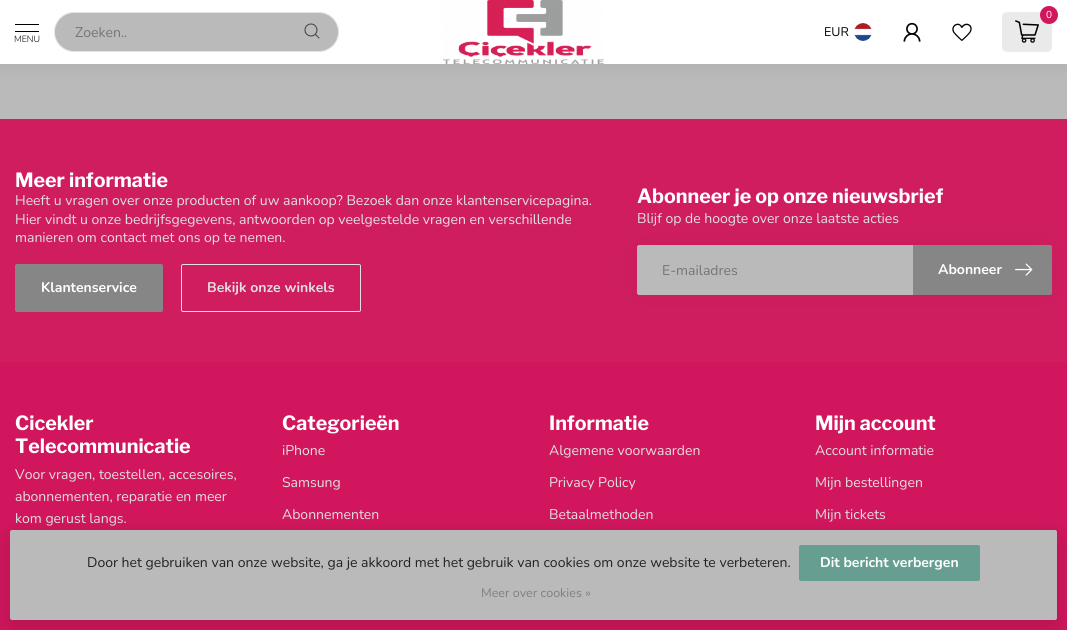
import math
import cairo

surface = cairo.ImageSurface(cairo.FORMAT_RGB24, 1067, 630)
ctx = cairo.Context(surface)
options = cairo.FontOptions()
options.set_hint_metrics(cairo.HINT_METRICS_OFF)
options.set_hint_style(cairo.HINT_STYLE_NONE)
ctx.set_font_options(options)
ctx.set_miter_limit(4)


def set_color(code):
    ctx.set_source_rgb(*(v / 255 for v in bytes.fromhex(code[-6:])))


def draw_text(x, y, s, family, size, color, bold=False, italic=False):
    ctx.select_font_face(family, cairo.FONT_SLANT_ITALIC if italic else cairo.FONT_SLANT_NORMAL, cairo.FONT_WEIGHT_BOLD if bold else cairo.FONT_WEIGHT_NORMAL)
    ctx.set_font_size(size)
    set_color(color)
    ctx.move_to(x, y)
    ctx.show_text(s)


def fill_rect(x, y, w, h, color):
    set_color(color)
    ctx.rectangle(x, y, w, h)
    ctx.fill()


def rounded_rect(x, y, w, h, r):
    ctx.new_sub_path()
    for i, (u, v) in enumerate([(x + w - r, y + h - r), (x + r, y + h - r), (x + r, y + r), (x + w - r, y + r)]):
        ctx.arc(u, v, r, i * math.pi / 2, (i + 1) * math.pi / 2)
    ctx.close_path()


def draw_shadow(x, y, w, h, r, blur, alpha):
    ctx.push_group_with_content(cairo.CONTENT_ALPHA)
    ctx.set_operator(cairo.OPERATOR_SOURCE)
    for i in range(15, -16, -2):
        e = blur * i / 6
        if min(w, h) + 2 * e > 0:
            ctx.set_source_rgba(0, 0, 0, alpha * math.erfc((i - 1) / 8.5) / 2)
            rounded_rect(x - e, y - e, w + 2 * e, h + 2 * e, max(0, min(r + e + blur * .6, min(w, h) / 2 + e)))
            ctx.fill()
    ctx.mask(ctx.pop_group())


def draw_image(path, x, y, w, h):
    ctx.save()
    ctx.set_source_surface(cairo.ImageSurface.create_from_png(path), x, y)
    ctx.rectangle(x, y, w, h)
    ctx.fill()
    ctx.restore()


set_color("#bababa")
ctx.paint()
set_color("#000000")
draw_shadow(0, -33, 1067, 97, 0, 11, 0.08)
fill_rect(0, 0, 1067, 64, "#ffffff")
set_color("#bababa")
rounded_rect(54.5, 12.5, 284, 39, 19.5)
ctx.fill_preserve()
set_color("#e5e5e5")
ctx.set_line_width(1)
ctx.stroke()
draw_text(75, 37, "Zoeken..", "Nunito", 14, "#757575")
draw_image("assets/img1.png", 304, 23, 16, 16)
fill_rect(15, 24, 24, 1, "#000000")
fill_rect(15, 31, 24, 1, "#000000")
draw_text(14, 42, "MENU", "Nunito Light", 9, "#000000")
draw_image("assets/img2.png", 443, 0, 161, 64)
set_color("#eaeaea")
rounded_rect(1002, 12, 50, 40, 5)
ctx.fill()
set_color("#d2165d")
ctx.arc(1049, 15, 9, 0, 2 * math.pi)
ctx.fill()
draw_text(1046, 18, "0", "Nunito", 10, "#ffffff")
draw_image("assets/img3.png", 1015, 20, 24, 23)
draw_text(824, 36, "EUR", "Nunito", 12.5, "#000000")
draw_image("assets/img4.png", 854, 23, 18, 18)
draw_image("assets/img5.png", 903, 22, 18, 20)
draw_image("assets/img6.png", 952, 23, 20, 18)
fill_rect(0, 362, 1067, 268, "#d2165d")
fill_rect(0, 119, 1067, 243, "#cf1d60")
draw_text(15, 187, "Meer informatie", "Libre Franklin", 19.6, "#ffffff", bold=True)
draw_text(15, 205, "Heeft u vragen over onze producten of uw aankoop? Bezoek dan onze klantenservicepagina.", "Nunito", 14, "#e1e1e1")
draw_text(15, 224, "Hier vindt u onze bedrijfsgegevens, antwoorden op veelgestelde vragen en verschillende", "Nunito", 14, "#e1e1e1")
draw_text(15, 242, "manieren om contact met ons op te nemen.", "Nunito", 14, "#e1e1e1")
set_color("#868686")
rounded_rect(15, 264, 148, 48, 2)
ctx.fill()
draw_text(41, 292, "Klantenservice", "Nunito", 14, "#ffffff", bold=True)
rounded_rect(181.5, 264.5, 179, 47, 1.5)
set_color("#e1e1e1")
ctx.stroke()
draw_text(207, 292, "Bekijk onze winkels", "Nunito", 14, "#e1e1e1", bold=True)
draw_text(637, 203, "Abonneer je op onze nieuwsbrief", "Libre Franklin", 19.6, "#ffffff", bold=True)
set_color("#000000")
draw_shadow(647, 255, 395, 30, 0, 15, 0.1)
draw_text(637, 223, "Blijf op de hoogte over onze laatste acties", "Nunito", 14, "#e1e1e1")
set_color("#bababa")
ctx.new_path()
ctx.move_to(639, 245)
ctx.line_to(913, 245)
ctx.line_to(913, 295)
ctx.line_to(639, 295)
ctx.curve_to(638, 295, 637, 294, 637, 293)
ctx.line_to(637, 247)
ctx.curve_to(637, 246, 638, 245, 639, 245)
ctx.close_path()
ctx.fill()
draw_text(662, 275, "E-mailadres", "Nunito", 14, "#757575")
set_color("#868686")
ctx.new_path()
ctx.move_to(913, 245)
ctx.line_to(1050, 245)
ctx.curve_to(1051, 245, 1052, 246, 1052, 247)
ctx.line_to(1052, 293)
ctx.curve_to(1052, 294, 1051, 295, 1050, 295)
ctx.line_to(913, 295)
ctx.close_path()
ctx.fill()
draw_text(938, 274, "Abonneer", "Nunito", 14, "#ffffff", bold=True)
draw_image("assets/img7.png", 1015, 263, 18, 13)
draw_text(15, 430, "Cicekler", "Libre Franklin", 19.6, "#ffffff", bold=True)
draw_text(15, 453, "Telecommunicatie", "Libre Franklin", 19.6, "#ffffff", bold=True)
draw_text(15, 479, "Voor vragen, toestellen, accesoires,", "Nunito", 14, "#e1e1e1")
draw_text(15, 501, "abonnementen, reparatie en meer", "Nunito", 14, "#e1e1e1")
draw_text(15, 523, "kom gerust langs.", "Nunito", 14, "#e1e1e1")
draw_text(282, 430, "Categorieën", "Libre Franklin", 19.6, "#ffffff", bold=True)
draw_text(282, 455, "iPhone", "Nunito", 14, "#e1e1e1")
draw_text(282, 487, "Samsung", "Nunito", 14, "#e1e1e1")
draw_text(282, 519, "Abonnementen", "Nunito", 14, "#e1e1e1")
draw_text(549, 430, "Informatie", "Libre Franklin", 19.6, "#ffffff", bold=True)
draw_text(549, 455, "Algemene voorwaarden", "Nunito", 14, "#e1e1e1")
draw_text(549, 487, "Privacy Policy", "Nunito", 14, "#e1e1e1")
draw_text(549, 519, "Betaalmethoden", "Nunito", 14, "#e1e1e1")
draw_text(815, 430, "Mijn account", "Libre Franklin", 19.6, "#ffffff", bold=True)
draw_text(815, 455, "Account informatie", "Nunito", 14, "#e1e1e1")
draw_text(815, 487, "Mijn bestellingen", "Nunito", 14, "#e1e1e1")
draw_text(815, 519, "Mijn tickets", "Nunito", 14, "#e1e1e1")
set_color("#000000")
draw_shadow(10, 540, 1047, 90, 2, 15, 0.15)
set_color("#bababa")
rounded_rect(10, 530, 1047, 90, 2)
ctx.fill()
draw_text(87, 567, "Door het gebruiken van onze website, ga je akkoord met het gebruik van cookies om onze website te verbeteren.", "Nunito", 14, "#222222")
set_color("#669f91")
rounded_rect(799, 545, 181, 36, 2)
ctx.fill()
draw_text(820, 567, "Dit bericht verbergen", "Nunito", 14, "#ffffff", bold=True)
draw_text(481, 597, "Meer over cookies »", "Nunito", 12.5, "#7f7f7f")
surface.write_to_png("output.png")
